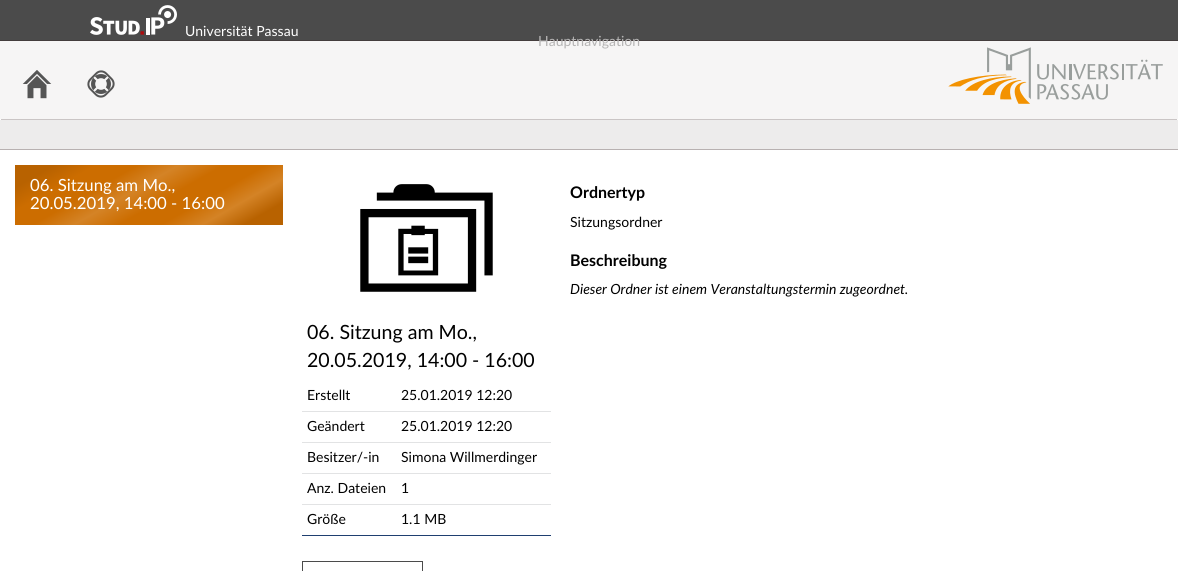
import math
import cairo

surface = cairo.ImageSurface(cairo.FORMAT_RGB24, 1178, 571)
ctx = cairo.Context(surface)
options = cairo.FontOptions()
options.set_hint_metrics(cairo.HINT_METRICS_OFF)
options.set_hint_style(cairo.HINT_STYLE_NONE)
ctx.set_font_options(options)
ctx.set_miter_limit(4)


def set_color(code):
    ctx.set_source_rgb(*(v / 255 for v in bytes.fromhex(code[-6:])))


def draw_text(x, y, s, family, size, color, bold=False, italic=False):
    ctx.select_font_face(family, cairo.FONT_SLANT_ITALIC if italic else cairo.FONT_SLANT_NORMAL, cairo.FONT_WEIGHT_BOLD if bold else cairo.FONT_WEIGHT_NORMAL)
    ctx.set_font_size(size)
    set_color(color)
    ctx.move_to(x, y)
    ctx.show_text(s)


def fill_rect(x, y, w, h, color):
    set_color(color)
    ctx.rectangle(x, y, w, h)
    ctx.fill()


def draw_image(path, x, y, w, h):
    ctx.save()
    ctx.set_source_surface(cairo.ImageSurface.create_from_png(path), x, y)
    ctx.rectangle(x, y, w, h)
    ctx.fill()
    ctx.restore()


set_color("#ffffff")
ctx.paint()
fill_rect(0, 0, 1178, 40, "#4b4b4b")
draw_image("assets/img1.png", 90, 5, 87, 30)
set_color("#f6f5f5")
ctx.new_path()
ctx.move_to(0, 40)
ctx.line_to(1178, 40)
ctx.line_to(1178, 118)
ctx.curve_to(1178, 119, 1177, 120, 1176, 120)
ctx.line_to(2, 120)
ctx.curve_to(1, 120, 0, 119, 0, 118)
ctx.close_path()
ctx.fill()
fill_rect(0, 40, 1178, 1, "#443d3d")
draw_text(185, 36, "Universität Passau", "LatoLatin", 14, "#ffffff")
fill_rect(1, 119, 1176, 1, "#cac5c5")
draw_image("assets/img2.png", 22, 70, 30, 29)
draw_image("assets/img3.png", 87, 70, 28, 28)
fill_rect(0, 120, 1178, 29, "#edecec")
fill_rect(0, 149, 1178, 1, "#b8b1b1")
draw_text(538, 46, "Hauptnavigation", "LatoLatin", 14, "#b5b4b4")
draw_image("assets/img4.png", 948, 47, 215, 57)
gradient = cairo.LinearGradient(103, 114, 195, 276)
gradient.add_color_stop_rgba(0, 0.722, 0.384, 0, 1)
gradient.add_color_stop_rgba(0.11, 0.722, 0.384, 0, 1)
gradient.add_color_stop_rgba(0.22, 0.8, 0.427, 0, 1)
gradient.add_color_stop_rgba(0.33, 0.8, 0.427, 0, 1)
gradient.add_color_stop_rgba(0.44, 0.831, 0.514, 0.149, 1)
gradient.add_color_stop_rgba(0.56, 0.8, 0.427, 0, 1)
gradient.add_color_stop_rgba(0.67, 0.8, 0.427, 0, 1)
gradient.add_color_stop_rgba(0.78, 0.831, 0.514, 0.149, 1)
gradient.add_color_stop_rgba(0.89, 0.722, 0.384, 0, 1)
gradient.add_color_stop_rgba(1, 0.722, 0.384, 0, 1)
ctx.set_source(gradient)
ctx.rectangle(15, 165, 268, 60)
ctx.fill()
draw_text(30, 191, "06. Sitzung am Mo.,", "LatoLatin", 16.75, "#ffffff")
draw_text(30, 209, "20.05.2019, 14:00 - 16:00", "LatoLatin", 16.75, "#ffffff")
gradient = cairo.RadialGradient(0, 0, 0, 0, 0, 1)
gradient.set_matrix(cairo.Matrix(1 / 14, 0, 0, 1 / 251, -1 * 1178 / 14, -1 * 401 / 251))
gradient.add_color_stop_rgba(0, 0.8, 0.8, 0.8, 1)
gradient.add_color_stop_rgba(1, 1, 1, 1, 1)
ctx.set_source(gradient)
ctx.rectangle(1165, 319, 1, 164)
ctx.fill()
gradient = cairo.RadialGradient(0, 0, 0, 0, 0, 1)
gradient.set_matrix(cairo.Matrix(1 / 14, 0, 0, 1 / 251, -1 * 287 / 14, -1 * 401 / 251))
gradient.add_color_stop_rgba(0, 0.8, 0.8, 0.8, 1)
gradient.add_color_stop_rgba(1, 1, 1, 1, 1)
ctx.set_source(gradient)
ctx.rectangle(299, 319, 1, 164)
ctx.fill()
gradient = cairo.LinearGradient(1138, 401, 1178, 401)
gradient.add_color_stop_rgba(0, 1, 1, 1, 0)
gradient.add_color_stop_rgba(0.7, 1, 1, 1, 1)
ctx.set_source(gradient)
ctx.rectangle(1165, 319, 1, 164)
ctx.fill()
gradient = cairo.LinearGradient(287, 401, 327, 401)
gradient.add_color_stop_rgba(0.3, 1, 1, 1, 1)
gradient.add_color_stop_rgba(1, 1, 1, 1, 0)
ctx.set_source(gradient)
ctx.rectangle(299, 319, 1, 164)
ctx.fill()
draw_text(570, 198, "Ordnertyp", "LatoLatin", 16, "#000000", bold=True)
draw_text(570, 227, "Sitzungsordner", "LatoLatin", 14, "#000000")
draw_text(570, 266, "Beschreibung", "LatoLatin", 16, "#000000", bold=True)
draw_text(570, 294, "Dieser Ordner ist einem Veranstaltungstermin zugeordnet.", "LatoLatin", 14, "#000000", italic=True)
draw_image("assets/img5.png", 360, 184, 133, 108)
draw_text(307, 339, "06. Sitzung am Mo.,", "LatoLatin", 19.6, "#000000")
draw_text(307, 367, "20.05.2019, 14:00 - 16:00", "LatoLatin", 19.6, "#000000")
draw_text(307, 400, "Erstellt", "LatoLatin", 14, "#000000")
fill_rect(302, 411, 249, 1, "#e2e3e4")
draw_text(401, 400, "25.01.2019 12:20", "LatoLatin", 14, "#000000")
draw_text(307, 431, "Geändert", "LatoLatin", 14, "#000000")
fill_rect(302, 442, 249, 1, "#e2e3e4")
draw_text(401, 431, "25.01.2019 12:20", "LatoLatin", 14, "#000000")
draw_text(307, 462, "Besitzer/-in", "LatoLatin", 14, "#000000")
fill_rect(302, 473, 249, 1, "#e2e3e4")
draw_text(401, 462, "Simona Willmerdinger", "LatoLatin", 14, "#000000")
draw_text(307, 493, "Anz. Dateien", "LatoLatin", 14, "#000000")
fill_rect(302, 504, 249, 1, "#e2e3e4")
draw_text(401, 493, "1", "LatoLatin", 14, "#000000")
draw_text(307, 524, "Größe", "LatoLatin", 14, "#000000")
fill_rect(302, 535, 249, 1, "#1f3f70")
draw_text(401, 524, "1.1 MB", "LatoLatin", 14, "#000000")
ctx.rectangle(302.5, 561.5, 120, 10)
set_color("#4b4b4b")
ctx.set_line_width(1)
ctx.stroke()
surface.write_to_png("output.png")
